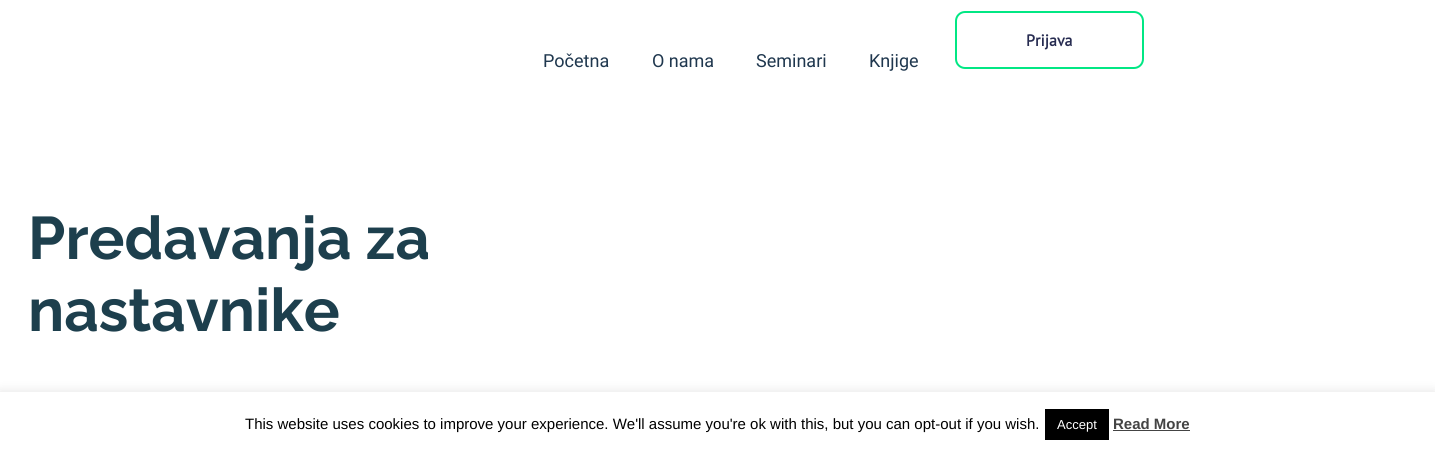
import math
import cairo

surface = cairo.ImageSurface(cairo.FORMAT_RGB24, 1435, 452)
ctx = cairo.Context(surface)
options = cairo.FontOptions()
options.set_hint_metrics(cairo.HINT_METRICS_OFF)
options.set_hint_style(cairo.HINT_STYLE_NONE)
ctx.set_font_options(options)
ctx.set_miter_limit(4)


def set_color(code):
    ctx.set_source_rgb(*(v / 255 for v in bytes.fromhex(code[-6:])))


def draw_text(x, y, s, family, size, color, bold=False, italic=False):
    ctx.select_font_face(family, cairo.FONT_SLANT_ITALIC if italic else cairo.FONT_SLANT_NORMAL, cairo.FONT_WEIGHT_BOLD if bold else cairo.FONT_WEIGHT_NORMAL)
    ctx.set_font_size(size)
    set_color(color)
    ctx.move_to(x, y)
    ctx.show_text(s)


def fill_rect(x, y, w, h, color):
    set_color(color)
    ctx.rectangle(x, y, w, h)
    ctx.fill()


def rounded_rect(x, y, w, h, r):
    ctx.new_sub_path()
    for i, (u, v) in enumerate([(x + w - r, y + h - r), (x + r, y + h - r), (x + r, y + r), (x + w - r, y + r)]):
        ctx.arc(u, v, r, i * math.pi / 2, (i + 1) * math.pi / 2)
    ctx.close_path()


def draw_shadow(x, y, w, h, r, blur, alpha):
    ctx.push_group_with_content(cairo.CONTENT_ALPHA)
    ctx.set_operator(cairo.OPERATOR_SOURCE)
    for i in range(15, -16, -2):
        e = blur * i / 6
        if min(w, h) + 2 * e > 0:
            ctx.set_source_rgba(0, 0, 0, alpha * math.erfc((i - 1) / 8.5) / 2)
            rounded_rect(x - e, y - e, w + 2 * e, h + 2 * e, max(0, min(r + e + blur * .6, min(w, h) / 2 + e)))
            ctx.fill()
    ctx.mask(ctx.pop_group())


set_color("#ffffff")
ctx.paint()
rounded_rect(956, 12, 187, 56, 9)
set_color("#01e784")
ctx.stroke()
draw_text(1026, 46, "Prijava", "PT Sans", 16, "#272c51", bold=True)
draw_text(543, 67, "Početna", "Roboto", 18, "#1f374e")
draw_text(652, 67, "O nama", "Roboto", 18, "#1f374e")
draw_text(756, 67, "Seminari", "Roboto", 18, "#1f374e")
draw_text(869, 67, "Knjige", "Roboto", 18, "#1f374e")
draw_text(28, 259, "Predavanja za", "Raleway", 60, "#1d3f4d", bold=True)
draw_text(28, 331, "nastavnike", "Raleway", 60, "#1d3f4d", bold=True)
set_color("#acabab")
draw_shadow(0, 391, 1435, 60, 0, 5, 0.3)
fill_rect(0, 392, 1435, 60, "#ffffff")
draw_text(245, 429, "This website uses cookies to improve your experience. We'll assume you're ok with this, but you can opt-out if you wish.", "Liberation Sans", 15, "#000000")
fill_rect(1045, 409, 64, 31, "#000000")
draw_text(1057, 429, "Accept", "Liberation Sans", 13, "#ffffff")
draw_text(1113, 429, "Read More", "Liberation Sans", 15, "#444444", bold=True)
fill_rect(1113, 430, 77, 1, "#444444")
surface.write_to_png("output.png")
